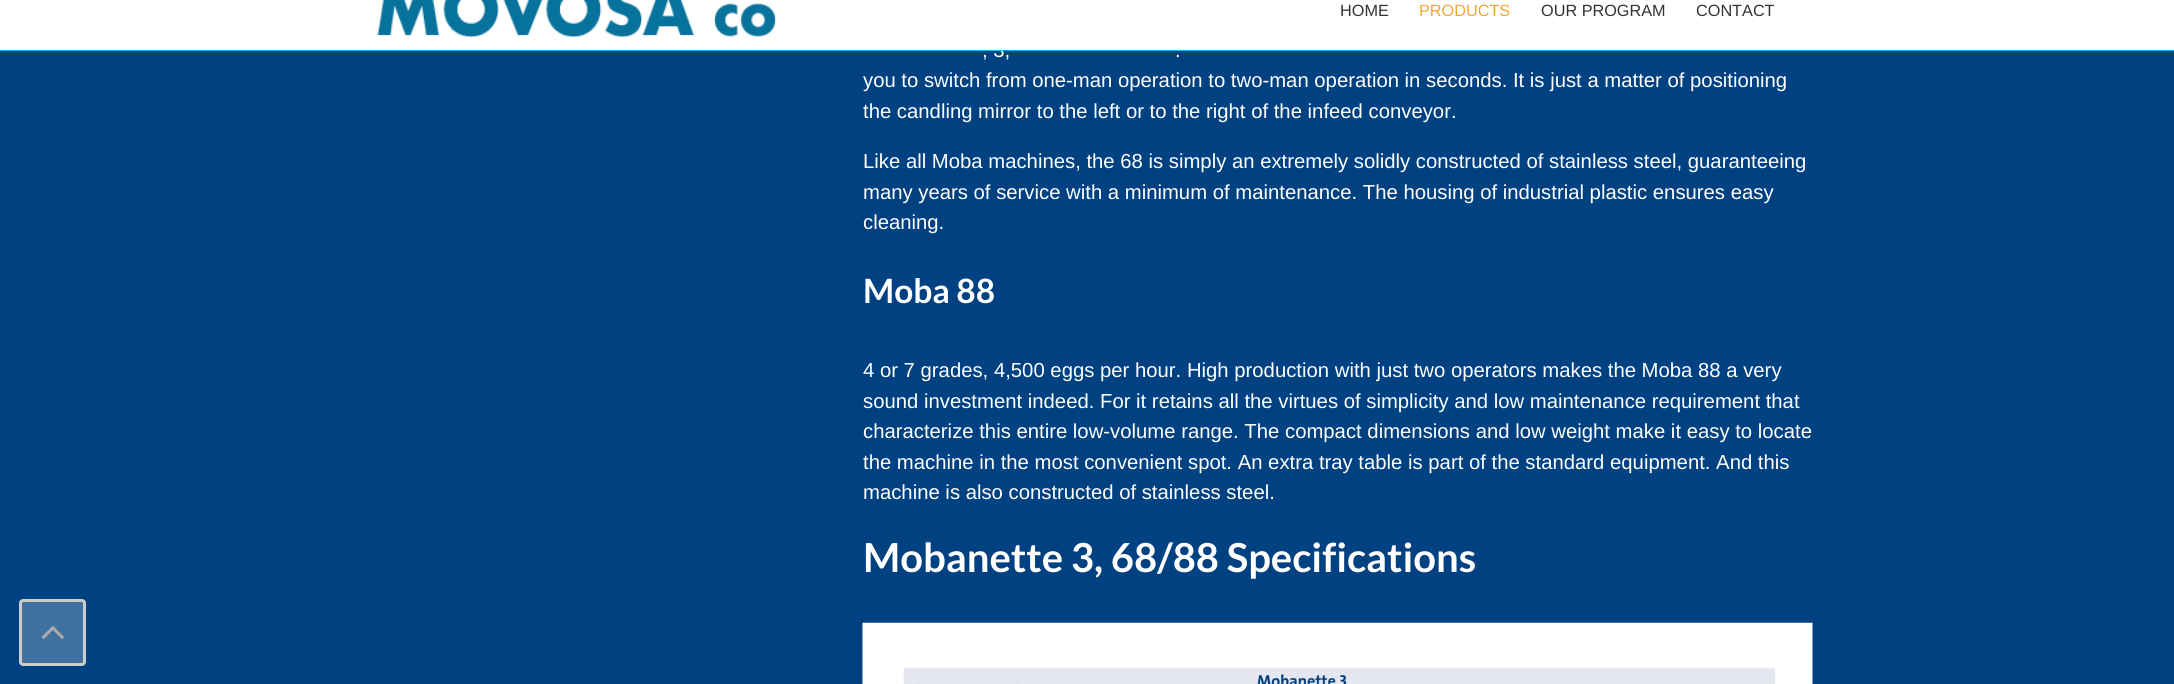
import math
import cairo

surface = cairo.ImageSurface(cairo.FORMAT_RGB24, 2174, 684)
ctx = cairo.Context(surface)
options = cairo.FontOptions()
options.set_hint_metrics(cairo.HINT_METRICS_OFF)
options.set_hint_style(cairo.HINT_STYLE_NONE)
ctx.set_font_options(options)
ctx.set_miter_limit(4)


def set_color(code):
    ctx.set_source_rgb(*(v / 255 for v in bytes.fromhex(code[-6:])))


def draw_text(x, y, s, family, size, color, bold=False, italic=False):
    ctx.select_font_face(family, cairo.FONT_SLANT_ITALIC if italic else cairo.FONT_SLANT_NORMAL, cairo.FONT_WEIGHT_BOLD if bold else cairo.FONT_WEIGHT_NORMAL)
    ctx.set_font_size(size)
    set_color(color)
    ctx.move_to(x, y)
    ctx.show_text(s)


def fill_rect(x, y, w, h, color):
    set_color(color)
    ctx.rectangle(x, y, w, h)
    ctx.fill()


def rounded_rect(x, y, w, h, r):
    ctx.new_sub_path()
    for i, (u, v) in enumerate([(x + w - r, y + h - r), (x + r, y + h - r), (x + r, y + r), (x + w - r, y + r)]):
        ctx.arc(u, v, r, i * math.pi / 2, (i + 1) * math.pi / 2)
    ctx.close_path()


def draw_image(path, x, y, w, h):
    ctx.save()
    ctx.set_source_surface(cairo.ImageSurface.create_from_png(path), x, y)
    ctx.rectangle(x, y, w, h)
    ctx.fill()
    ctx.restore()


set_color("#004182")
ctx.paint()
fill_rect(0, 0, 2174, 50, "#ffffff")
draw_image("assets/img1.png", 377, 0, 399, 38)
draw_text(1340, 16, "HOME", "Liberation Sans", 16.25, "#333333")
draw_text(1419, 16, "PRODUCTS", "Liberation Sans", 16.25, "#f1a635")
draw_text(1541, 16, "OUR PROGRAM", "Liberation Sans", 16.25, "#333333")
draw_text(1696, 16, "CONTACT", "Liberation Sans", 16.25, "#333333")
draw_text(982, 57, ", 3,", "Liberation Sans", 20.3, "#ffffff")
fill_rect(0, 50, 2174, 1, "#21a9ff")
draw_text(1175, 57, ".", "Liberation Sans", 20.3, "#ffffff")
draw_text(863, 87, "you to switch from one-man operation to two-man operation in seconds. It is just a matter of positioning", "Liberation Sans", 20.3, "#ffffff")
draw_text(863, 118, "the candling mirror to the left or to the right of the infeed conveyor.", "Liberation Sans", 20.3, "#ffffff")
draw_text(863, 168, "Like all Moba machines, the 68 is simply an extremely solidly constructed of stainless steel, guaranteeing", "Liberation Sans", 20.3, "#ffffff")
draw_text(863, 199, "many years of service with a minimum of maintenance. The housing of industrial plastic ensures easy", "Liberation Sans", 20.3, "#ffffff")
draw_text(863, 229, "cleaning.", "Liberation Sans", 20.3, "#ffffff")
draw_text(863, 303, "Moba 88", "Lato", 33.5, "#ffffff", bold=True)
draw_text(863, 377, "4 or 7 grades, 4,500 eggs per hour. High production with just two operators makes the Moba 88 a very", "Liberation Sans", 20.3, "#ffffff")
draw_text(863, 408, "sound investment indeed. For it retains all the virtues of simplicity and low maintenance requirement that", "Liberation Sans", 20.3, "#ffffff")
draw_text(863, 438, "characterize this entire low-volume range. The compact dimensions and low weight make it easy to locate", "Liberation Sans", 20.3, "#ffffff")
draw_text(863, 469, "the machine in the most convenient spot. An extra tray table is part of the standard equipment. And this", "Liberation Sans", 20.3, "#ffffff")
draw_text(863, 499, "machine is also constructed of stainless steel.", "Liberation Sans", 20.3, "#ffffff")
draw_text(863, 572, "Mobanette 3, 68/88 Specifications", "Lato", 40, "#ffffff", bold=True)
draw_image("assets/img2.png", 862, 622, 951, 62)
set_color("#4071a1")
rounded_rect(20.5, 600.5, 64, 64, 2.5)
ctx.fill_preserve()
set_color("#cccccc")
ctx.set_line_width(3)
ctx.stroke()
draw_image("assets/img3.png", 41, 626, 23, 13)
surface.write_to_png("output.png")
